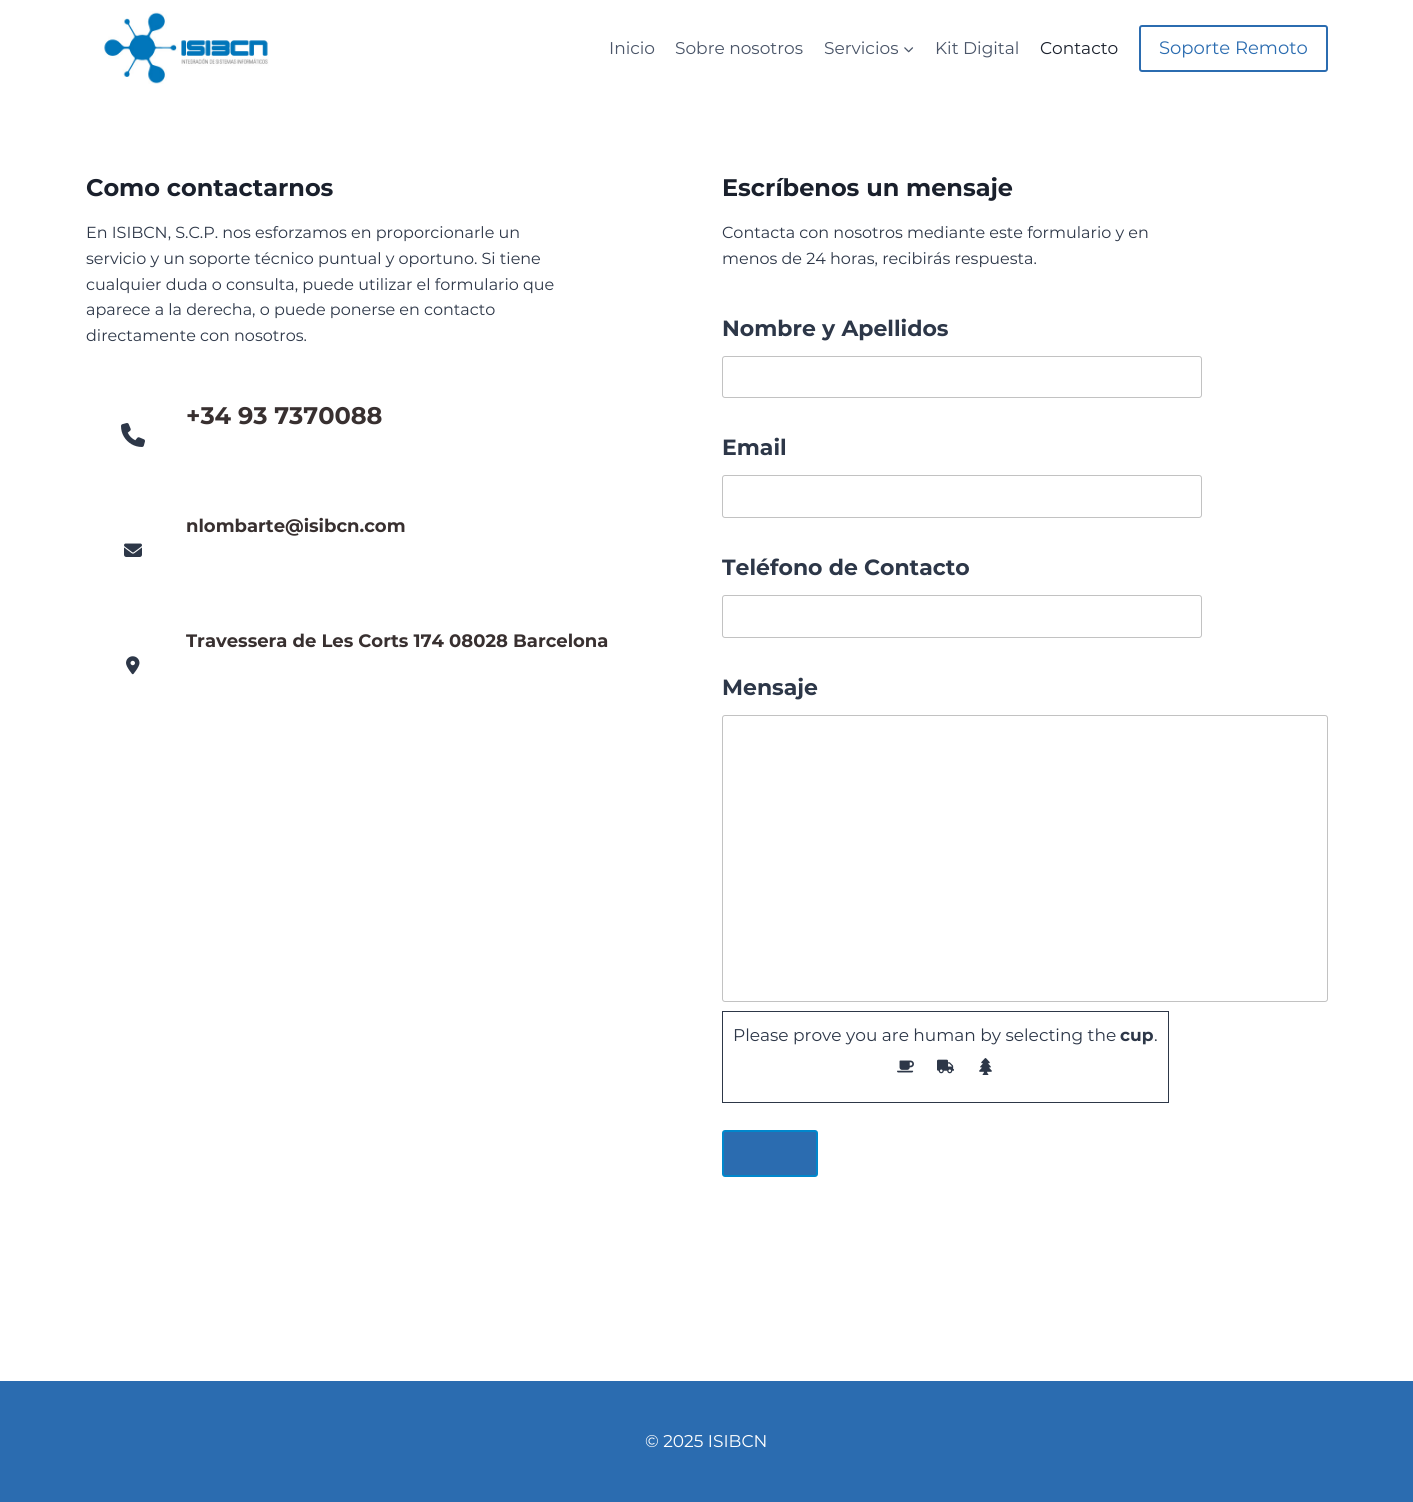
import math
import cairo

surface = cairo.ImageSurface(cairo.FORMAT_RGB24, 1413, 1502)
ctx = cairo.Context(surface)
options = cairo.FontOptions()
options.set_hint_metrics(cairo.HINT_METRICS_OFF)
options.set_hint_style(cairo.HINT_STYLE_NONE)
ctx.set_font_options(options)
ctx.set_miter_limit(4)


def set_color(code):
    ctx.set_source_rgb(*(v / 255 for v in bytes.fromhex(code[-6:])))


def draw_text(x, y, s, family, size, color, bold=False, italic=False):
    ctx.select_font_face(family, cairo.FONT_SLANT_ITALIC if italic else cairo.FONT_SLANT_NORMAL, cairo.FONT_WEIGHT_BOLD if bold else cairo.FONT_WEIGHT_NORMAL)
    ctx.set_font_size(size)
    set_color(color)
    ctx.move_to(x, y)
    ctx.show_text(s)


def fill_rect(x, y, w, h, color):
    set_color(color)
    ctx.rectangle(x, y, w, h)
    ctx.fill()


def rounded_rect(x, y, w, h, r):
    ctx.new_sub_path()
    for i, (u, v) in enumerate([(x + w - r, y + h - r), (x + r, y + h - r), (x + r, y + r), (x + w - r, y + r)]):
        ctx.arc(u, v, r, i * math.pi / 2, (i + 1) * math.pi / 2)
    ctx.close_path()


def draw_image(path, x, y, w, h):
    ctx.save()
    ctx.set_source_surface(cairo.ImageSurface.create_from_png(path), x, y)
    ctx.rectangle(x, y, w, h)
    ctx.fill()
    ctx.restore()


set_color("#ffffff")
ctx.paint()
draw_image("assets/img1.png", 104, 11, 165, 73)
draw_text(609, 54, "Inicio", "Montserrat", 17, "#4a5568")
draw_text(675, 54, "Sobre nosotros", "Montserrat", 17, "#4a5568")
draw_text(824, 54, "Servicios", "Montserrat", 17, "#4a5568")
draw_image("assets/img2.png", 904, 47, 10, 6)
draw_text(935, 54, "Kit Digital", "Montserrat", 17, "#4a5568")
draw_text(1040, 54, "Contacto", "Montserrat", 17, "#1a202c")
rounded_rect(1140, 26, 187, 45, 2)
set_color("#2b6cb0")
ctx.stroke()
draw_text(1159, 54, "Soporte Remoto", "Montserrat", 18, "#2b6cb0")
draw_text(86, 196, "Como contactarnos", "Montserrat", 24, "#1a202c", bold=True)
draw_text(86, 238, "En ISIBCN, S.C.P. nos esforzamos en proporcionarle un", "Montserrat", 16, "#2d3748")
draw_text(86, 264, "servicio y un soporte técnico puntual y oportuno. Si tiene", "Montserrat", 16, "#2d3748")
draw_text(86, 290, "cualquier duda o consulta, puede utilizar el formulario que", "Montserrat", 16, "#2d3748")
draw_text(86, 315, "aparece a la derecha, o puede ponerse en contacto", "Montserrat", 16, "#2d3748")
draw_text(86, 341, "directamente con nosotros.", "Montserrat", 16, "#2d3748")
draw_text(186, 424, "+34 93 7370088", "Montserrat", 24, "#383030", bold=True)
draw_image("assets/img3.png", 121, 423, 24, 24)
draw_text(186, 532, "nlombarte@isibcn.com", "Montserrat", 18, "#383030", bold=True)
draw_image("assets/img4.png", 124, 543, 18, 14)
draw_text(186, 647, "Travessera de Les Corts 174 08028 Barcelona", "Montserrat", 18, "#383030", bold=True)
draw_image("assets/img5.png", 126, 656, 14, 19)
draw_text(722, 196, "Escríbenos un mensaje", "Montserrat", 24, "#1a202c", bold=True)
draw_text(722, 238, "Contacta con nosotros mediante este formulario y en", "Montserrat", 16, "#2d3748")
draw_text(722, 264, "menos de 24 horas, recibirás respuesta.", "Montserrat", 16, "#2d3748")
draw_text(722, 336, "Nombre y Apellidos", "Montserrat", 22, "#2d3748", bold=True)
rounded_rect(722.5, 356.5, 479, 41, 2.5)
set_color("#c2c2c2")
ctx.set_line_width(1)
ctx.stroke()
draw_text(722, 455, "Email", "Montserrat", 22, "#2d3748", bold=True)
rounded_rect(722.5, 475.5, 479, 42, 2.5)
set_color("#c2c2c2")
ctx.stroke()
draw_text(722, 575, "Teléfono de Contacto", "Montserrat", 22, "#2d3748", bold=True)
rounded_rect(722.5, 595.5, 479, 42, 2.5)
set_color("#c2c2c2")
ctx.stroke()
draw_text(722, 695, "Mensaje", "Montserrat", 22, "#2d3748", bold=True)
rounded_rect(722.5, 715.5, 605, 286, 2.5)
set_color("#c2c2c2")
ctx.stroke()
ctx.rectangle(722.5, 1011.5, 446, 91)
set_color("#2d3748")
ctx.stroke()
draw_text(733, 1041, "Please prove you are human by selecting the", "Montserrat", 17, "#2d3748")
draw_text(1120, 1041, "cup", "Montserrat", 17, "#2d3748", bold=True)
draw_text(1154, 1041, ".", "Montserrat", 17, "#2d3748")
draw_image("assets/img6.png", 897, 1060, 17, 13)
draw_image("assets/img7.png", 937, 1059, 17, 15)
draw_image("assets/img8.png", 979, 1058, 13, 17)
set_color("#2b6cb0")
rounded_rect(723, 1131, 94, 45, 2)
ctx.fill_preserve()
set_color("#0087cc")
ctx.set_line_width(2)
ctx.stroke()
fill_rect(0, 1381, 1413, 121, "#2b6cb0")
draw_text(645, 1447, "© 2025 ISIBCN", "Montserrat", 17, "#ffffff")
surface.write_to_png("output.png")
